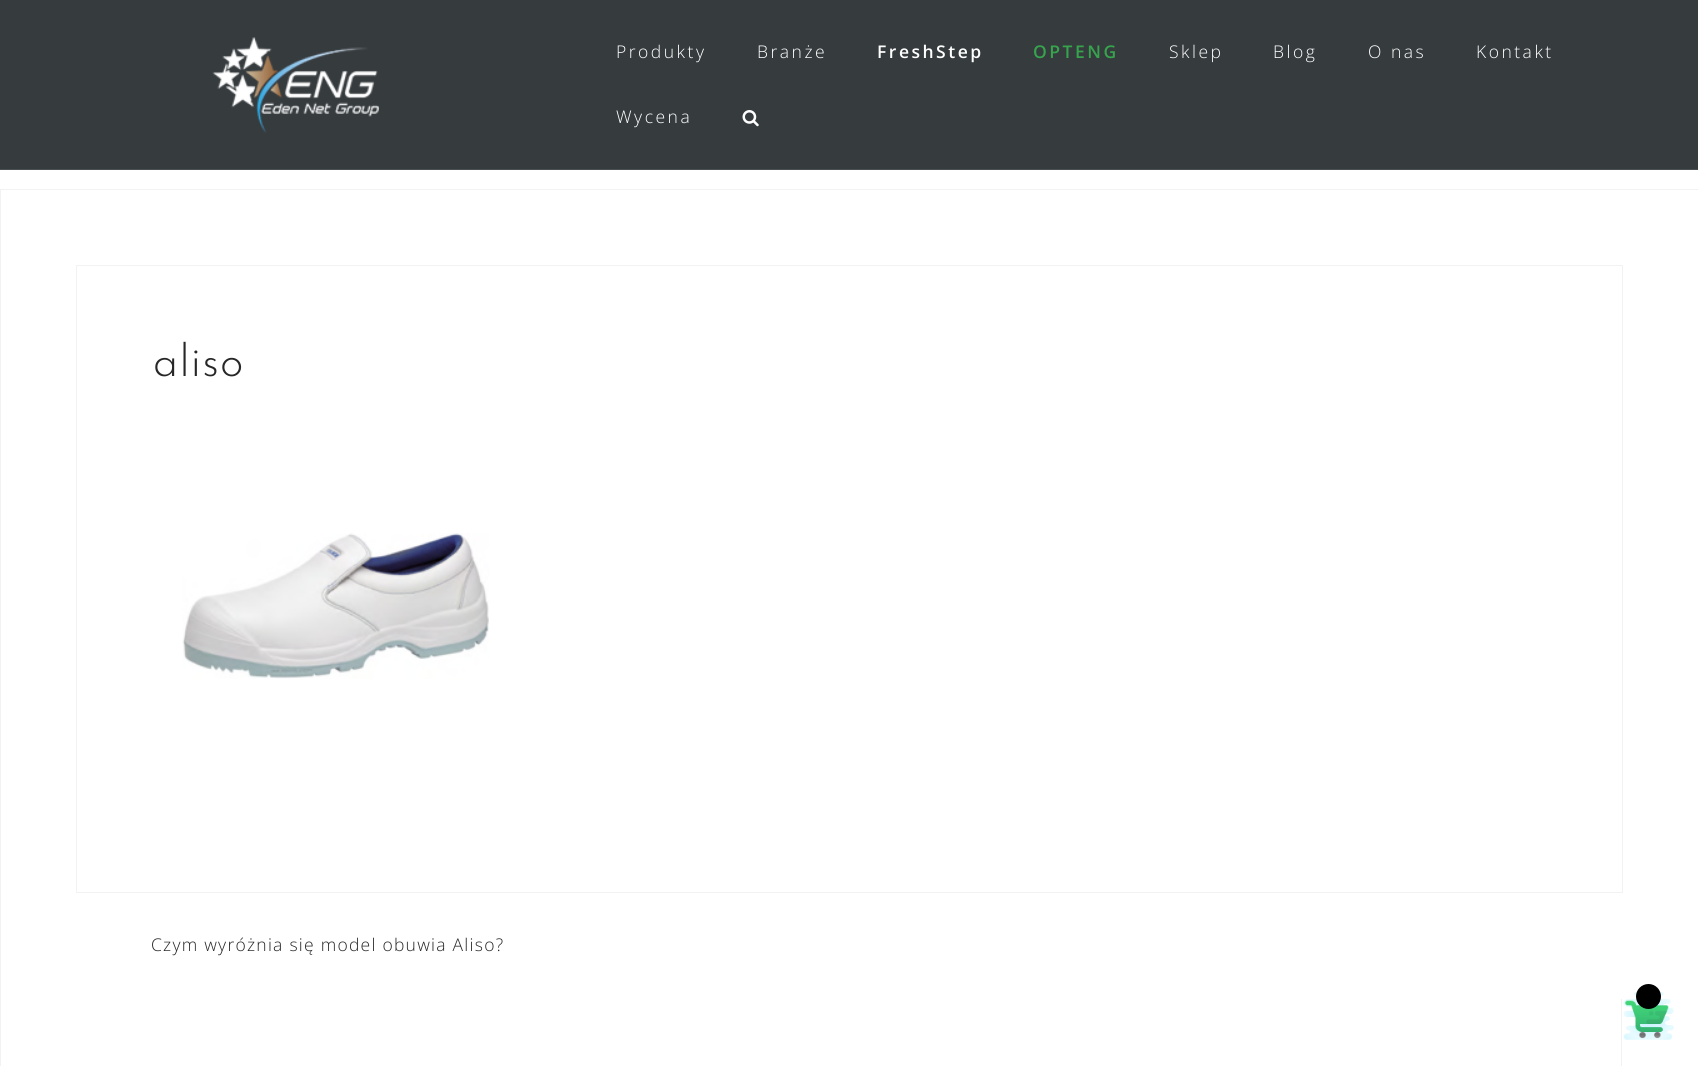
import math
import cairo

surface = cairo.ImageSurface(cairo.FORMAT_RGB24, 1698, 1066)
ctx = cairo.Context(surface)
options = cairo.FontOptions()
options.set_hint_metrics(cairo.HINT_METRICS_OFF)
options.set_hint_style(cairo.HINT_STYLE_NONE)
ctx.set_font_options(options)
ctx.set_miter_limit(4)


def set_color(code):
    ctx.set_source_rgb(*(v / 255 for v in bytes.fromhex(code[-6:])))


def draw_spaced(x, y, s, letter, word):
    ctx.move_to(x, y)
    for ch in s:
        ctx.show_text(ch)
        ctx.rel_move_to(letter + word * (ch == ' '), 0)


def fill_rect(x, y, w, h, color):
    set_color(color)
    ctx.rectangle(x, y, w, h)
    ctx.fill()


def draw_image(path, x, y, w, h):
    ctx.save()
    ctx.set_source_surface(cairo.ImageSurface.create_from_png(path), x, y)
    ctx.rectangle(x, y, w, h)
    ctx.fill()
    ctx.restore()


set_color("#ffffff")
ctx.paint()
fill_rect(0, 0, 1698, 169, "#363b3e")
fill_rect(0, 169, 1698, 1, "#4a4f51")
draw_image("assets/img1.png", 212, 37, 167, 96)
ctx.select_font_face("Open Sans Light")
ctx.set_font_size(17.5)
set_color("#ffffff")
draw_spaced(616, 58, "Produkty", 2.5, 0)
draw_spaced(757, 58, "Branże", 2.5, 0)
ctx.select_font_face("Open Sans SemiBold")
draw_spaced(877, 58, "FreshStep", 2.5, 0)
set_color("#36a44d")
draw_spaced(1033, 58, "OPTENG", 2.5, 0)
ctx.select_font_face("Open Sans Light")
set_color("#ffffff")
draw_spaced(1169, 58, "Sklep", 2.5, 0)
draw_spaced(1273, 58, "Blog", 2.5, 0)
draw_spaced(1368, 58, "O nas", 2.5, 0)
draw_spaced(1476, 58, "Kontakt", 2.5, 0)
draw_spaced(616, 123, "Wycena", 2.5, 0)
draw_image("assets/img2.png", 742, 110, 17, 17)
fill_rect(0, 189, 1, 877, "#f2f2f3")
fill_rect(1, 189, 1697, 1, "#f2f2f3")
ctx.rectangle(76.5, 265.5, 1546, 627)
ctx.set_line_width(1)
ctx.stroke()
ctx.select_font_face("Josefin Sans Thin")
ctx.set_font_size(45)
set_color("#272727")
draw_spaced(153, 376, "aliso", 1.25, 0)
draw_image("assets/img3.png", 182, 533, 307, 146)
ctx.select_font_face("Open Sans Light")
ctx.set_font_size(17.5)
draw_spaced(151, 951, "Czym wyróżnia się model obuwia Aliso?", 1.25, 0)
fill_rect(1621, 999, 1, 67, "#f2f2f3")
draw_image("assets/img4.png", 1623, 992, 51, 48)
set_color("#000000")
ctx.arc(1648.5, 996.5, 12.5, 0, 2 * math.pi)
ctx.fill()
surface.write_to_png("output.png")
